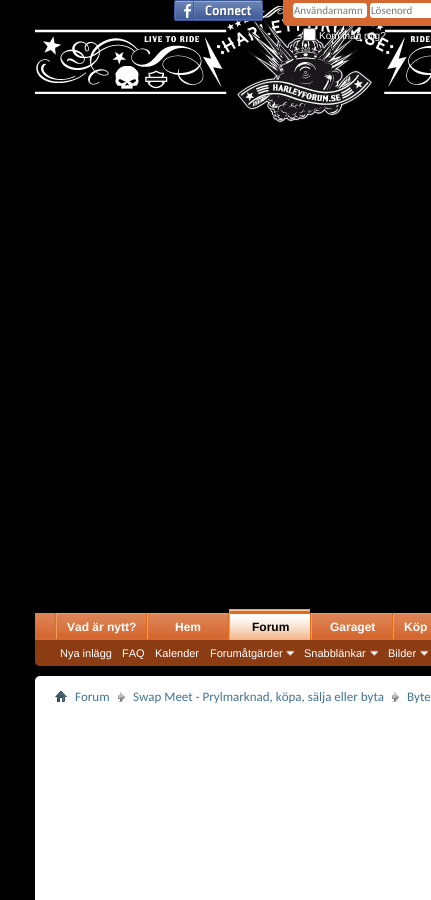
import math
import cairo

surface = cairo.ImageSurface(cairo.FORMAT_RGB24, 431, 900)
ctx = cairo.Context(surface)
options = cairo.FontOptions()
options.set_hint_metrics(cairo.HINT_METRICS_OFF)
options.set_hint_style(cairo.HINT_STYLE_NONE)
ctx.set_font_options(options)
ctx.set_miter_limit(4)


def set_color(code):
    ctx.set_source_rgb(*(v / 255 for v in bytes.fromhex(code[-6:])))


def draw_text(x, y, s, family, size, color, bold=False, italic=False):
    ctx.select_font_face(family, cairo.FONT_SLANT_ITALIC if italic else cairo.FONT_SLANT_NORMAL, cairo.FONT_WEIGHT_BOLD if bold else cairo.FONT_WEIGHT_NORMAL)
    ctx.set_font_size(size)
    set_color(color)
    ctx.move_to(x, y)
    ctx.show_text(s)


def fill_rect(x, y, w, h, color):
    set_color(color)
    ctx.rectangle(x, y, w, h)
    ctx.fill()


def rounded_rect(x, y, w, h, r):
    ctx.new_sub_path()
    for i, (u, v) in enumerate([(x + w - r, y + h - r), (x + r, y + h - r), (x + r, y + r), (x + w - r, y + r)]):
        ctx.arc(u, v, r, i * math.pi / 2, (i + 1) * math.pi / 2)
    ctx.close_path()


def draw_image(path, x, y, w, h):
    ctx.save()
    ctx.set_source_surface(cairo.ImageSurface.create_from_png(path), x, y)
    ctx.rectangle(x, y, w, h)
    ctx.fill()
    ctx.restore()


set_color("#000000")
ctx.paint()
draw_image("assets/img1.png", 35, 6, 396, 117)
draw_image("assets/img2.png", 174, 0, 89, 21)
set_color("#d56830")
ctx.new_path()
ctx.move_to(283, 0)
ctx.line_to(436, 0)
ctx.line_to(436, 21)
ctx.curve_to(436, 24, 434, 26, 431, 26)
ctx.line_to(288, 26)
ctx.curve_to(285, 26, 283, 24, 283, 21)
ctx.close_path()
ctx.fill()
set_color("#ffffff")
rounded_rect(293, 3, 74, 15, 3)
ctx.fill()
draw_text(294, 14, "Användarnamn", "Carlito", 11, "#777777")
set_color("#ffffff")
rounded_rect(370, 3, 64, 15, 3)
ctx.fill()
draw_text(371, 14, "Lösenord", "Carlito", 11, "#777777")
set_color("#ffffff")
rounded_rect(303.5, 28.5, 12, 12, 1.5)
ctx.fill_preserve()
set_color("#767676")
ctx.set_line_width(1)
ctx.stroke()
draw_text(319, 39, "Kom ihåg mig?", "Liberation Sans", 10, "#ffffff")
set_color("#8c3c12")
ctx.new_path()
ctx.move_to(35, 613)
ctx.line_to(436, 613)
ctx.line_to(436, 661)
ctx.curve_to(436, 664, 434, 666, 431, 666)
ctx.line_to(40, 666)
ctx.curve_to(37, 666, 35, 664, 35, 661)
ctx.close_path()
ctx.fill()
fill_rect(35, 613, 20, 26, "#d56830")
draw_image("assets/img3.png", 35, 613, 20, 20)
fill_rect(146, 613, 1, 27, "#e46c14")
fill_rect(55, 613, 1, 27, "#e46c14")
fill_rect(57, 614, 89, 25, "#d56830")
draw_image("assets/img4.png", 57, 614, 89, 20)
fill_rect(56, 613, 90, 1, "#f19d5f")
fill_rect(56, 613, 1, 27, "#f19d5f")
draw_text(67, 631, "Vad är nytt?", "Liberation Sans", 12, "#ffffff", bold=True)
fill_rect(228, 613, 1, 27, "#e46c14")
fill_rect(148, 614, 80, 25, "#d56830")
draw_image("assets/img5.png", 148, 614, 80, 20)
fill_rect(147, 613, 81, 1, "#f19d5f")
fill_rect(147, 613, 1, 27, "#f19d5f")
draw_text(175, 631, "Hem", "Liberation Sans", 12, "#ffffff", bold=True)
fill_rect(310, 613, 1, 26, "#e46c14")
fill_rect(230, 610, 80, 29, "#e46c14")
fill_rect(392, 613, 1, 27, "#e46c14")
fill_rect(311, 613, 81, 1, "#f19d5f")
fill_rect(311, 613, 1, 27, "#f19d5f")
fill_rect(393, 613, 38, 1, "#f19d5f")
fill_rect(393, 613, 1, 27, "#f19d5f")
fill_rect(35, 639, 396, 1, "#e46c14")
draw_image("assets/img6.png", 230, 610, 80, 30)
fill_rect(229, 609, 81, 1, "#f19d5f")
fill_rect(229, 609, 1, 31, "#f19d5f")
draw_text(252, 631, "Forum", "Liberation Sans", 12, "#000000", bold=True)
fill_rect(312, 614, 80, 25, "#d56830")
draw_image("assets/img5.png", 312, 614, 80, 20)
draw_text(330, 631, "Garaget", "Liberation Sans", 12, "#ffffff", bold=True)
fill_rect(394, 614, 37, 25, "#d56830")
draw_image("assets/img7.png", 394, 614, 37, 20)
draw_text(404, 631, "Köp", "Liberation Sans", 12, "#ffffff", bold=True)
draw_text(60, 657, "Nya inlägg", "Liberation Sans", 11, "#ffffff")
draw_text(122, 657, "FAQ", "Liberation Sans", 11, "#ffffff")
draw_text(155, 657, "Kalender", "Liberation Sans", 11, "#ffffff")
draw_text(210, 657, "Forumåtgärder", "Liberation Sans", 11, "#ffffff")
draw_image("assets/img8.png", 286, 650, 9, 6)
draw_text(304, 657, "Snabblänkar", "Liberation Sans", 11, "#ffffff")
draw_image("assets/img8.png", 370, 650, 9, 6)
draw_text(388, 657, "Bilder", "Liberation Sans", 11, "#ffffff")
draw_image("assets/img8.png", 420, 650, 9, 6)
rounded_rect(35, 676, 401, 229, 5)
ctx.fill()
draw_image("assets/img9.png", 55, 691, 12, 11)
draw_image("assets/img10.png", 118, 692, 7, 10)
draw_text(75, 701, "Forum", "Carlito", 13, "#417394")
draw_image("assets/img10.png", 392, 692, 7, 10)
draw_text(133, 701, "Swap Meet - Prylmarknad, köpa, sälja eller byta", "Carlito", 13, "#417394")
draw_text(407, 701, "Byte", "Carlito", 13, "#417394")
surface.write_to_png("output.png")
